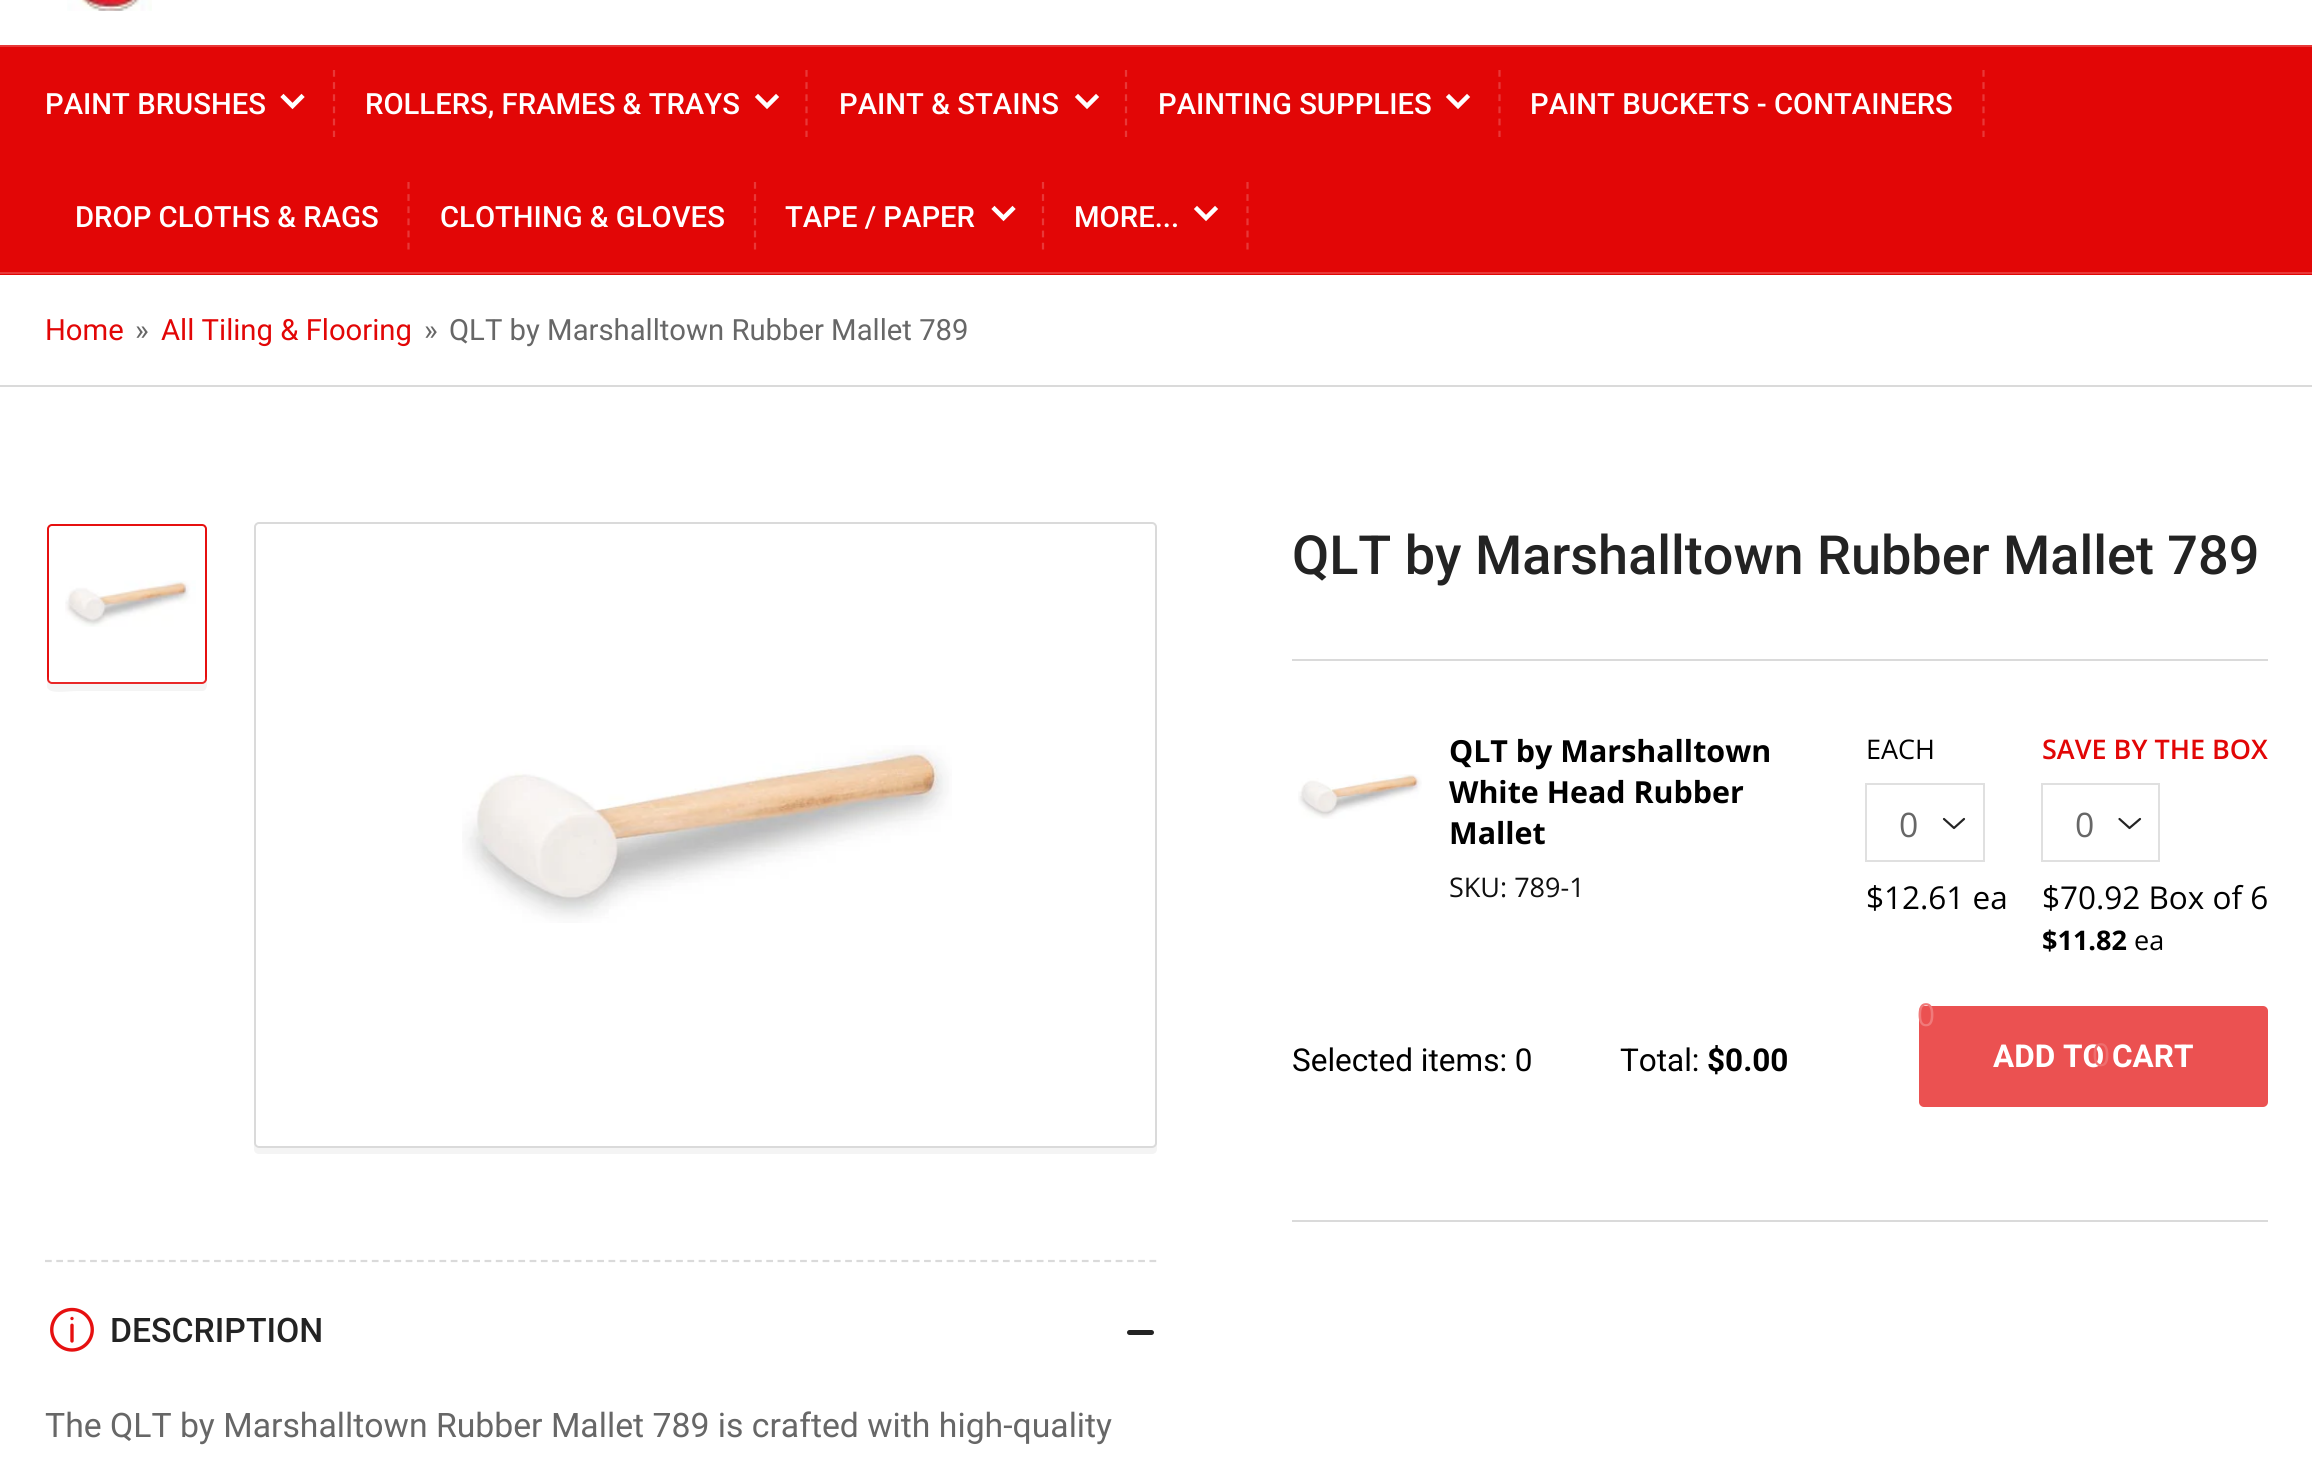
import math
import cairo

surface = cairo.ImageSurface(cairo.FORMAT_RGB24, 2312, 1461)
ctx = cairo.Context(surface)
options = cairo.FontOptions()
options.set_hint_metrics(cairo.HINT_METRICS_OFF)
options.set_hint_style(cairo.HINT_STYLE_NONE)
ctx.set_font_options(options)
ctx.set_miter_limit(4)


def set_color(code):
    ctx.set_source_rgb(*(v / 255 for v in bytes.fromhex(code[-6:])))


def draw_text(x, y, s, family, size, color, bold=False, italic=False):
    ctx.select_font_face(family, cairo.FONT_SLANT_ITALIC if italic else cairo.FONT_SLANT_NORMAL, cairo.FONT_WEIGHT_BOLD if bold else cairo.FONT_WEIGHT_NORMAL)
    ctx.set_font_size(size)
    set_color(color)
    ctx.move_to(x, y)
    ctx.show_text(s)


def fill_rect(x, y, w, h, color):
    set_color(color)
    ctx.rectangle(x, y, w, h)
    ctx.fill()


def rounded_rect(x, y, w, h, r):
    ctx.new_sub_path()
    for i, (u, v) in enumerate([(x + w - r, y + h - r), (x + r, y + h - r), (x + r, y + r), (x + w - r, y + r)]):
        ctx.arc(u, v, r, i * math.pi / 2, (i + 1) * math.pi / 2)
    ctx.close_path()


def draw_image(path, x, y, w, h):
    ctx.save()
    ctx.set_source_surface(cairo.ImageSurface.create_from_png(path), x, y)
    ctx.rectangle(x, y, w, h)
    ctx.fill()
    ctx.restore()


set_color("#ffffff")
ctx.paint()
draw_image("assets/img1.png", 67, 0, 85, 11)
fill_rect(0, 47, 2312, 228, "#e20606")
fill_rect(0, 45, 2312, 2, "#e83838")
fill_rect(0, 272, 2312, 2, "#e83838")
draw_text(45, 114, "PAINT BRUSHES", "Roboto Medium", 29.25, "#ffffff")
ctx.new_path()
ctx.move_to(301.5, 97)
ctx.line_to(292.5, 106)
ctx.line_to(283.5, 97)
ctx.set_line_width(4.5)
ctx.set_line_cap(cairo.LINE_CAP_SQUARE)
ctx.stroke()
ctx.new_path()
ctx.move_to(334, 70)
ctx.line_to(334, 137)
set_color("#e83838")
ctx.set_line_width(2.2)
ctx.set_line_cap(cairo.LINE_CAP_BUTT)
ctx.set_dash([6.75, 5.4])
ctx.stroke()
draw_text(365, 114, "ROLLERS, FRAMES & TRAYS", "Roboto Medium", 29.25, "#ffffff")
ctx.new_path()
ctx.move_to(776, 97)
ctx.line_to(767, 106)
ctx.line_to(758, 97)
ctx.set_line_width(4.5)
ctx.set_line_cap(cairo.LINE_CAP_SQUARE)
ctx.set_dash([])
ctx.stroke()
ctx.new_path()
ctx.move_to(806.5, 70)
ctx.line_to(806.5, 137)
set_color("#e83838")
ctx.set_line_width(2.2)
ctx.set_line_cap(cairo.LINE_CAP_BUTT)
ctx.set_dash([6.75, 5.4])
ctx.stroke()
draw_text(839, 114, "PAINT & STAINS", "Roboto Medium", 29.25, "#ffffff")
ctx.new_path()
ctx.move_to(1096, 97)
ctx.line_to(1087, 106)
ctx.line_to(1078, 97)
ctx.set_line_width(4.5)
ctx.set_line_cap(cairo.LINE_CAP_SQUARE)
ctx.set_dash([])
ctx.stroke()
ctx.new_path()
ctx.move_to(1126, 70)
ctx.line_to(1126, 137)
set_color("#e83838")
ctx.set_line_width(2.2)
ctx.set_line_cap(cairo.LINE_CAP_BUTT)
ctx.set_dash([6.75, 5.4])
ctx.stroke()
draw_text(1158, 114, "PAINTING SUPPLIES", "Roboto Medium", 29.25, "#ffffff")
ctx.new_path()
ctx.move_to(1467, 97)
ctx.line_to(1458, 106)
ctx.line_to(1449, 97)
ctx.set_line_width(4.5)
ctx.set_line_cap(cairo.LINE_CAP_SQUARE)
ctx.set_dash([])
ctx.stroke()
ctx.new_path()
ctx.move_to(1499.5, 70)
ctx.line_to(1499.5, 137)
set_color("#e83838")
ctx.set_line_width(2.2)
ctx.set_line_cap(cairo.LINE_CAP_BUTT)
ctx.set_dash([6.75, 5.4])
ctx.stroke()
draw_text(1530, 114, "PAINT BUCKETS - CONTAINERS", "Roboto Medium", 29.25, "#ffffff")
ctx.new_path()
ctx.move_to(1983.5, 70)
ctx.line_to(1983.5, 137)
set_color("#e83838")
ctx.stroke()
draw_text(75, 227, "DROP CLOTHS & RAGS", "Roboto Medium", 29.25, "#ffffff")
ctx.new_path()
ctx.move_to(408.5, 182)
ctx.line_to(408.5, 250)
set_color("#e83838")
ctx.stroke()
draw_text(440, 227, "CLOTHING & GLOVES", "Roboto Medium", 29.25, "#ffffff")
ctx.new_path()
ctx.move_to(755, 182)
ctx.line_to(755, 250)
set_color("#e83838")
ctx.stroke()
draw_text(785, 227, "TAPE / PAPER", "Roboto Medium", 29.25, "#ffffff")
ctx.new_path()
ctx.move_to(1012.5, 209)
ctx.line_to(1003.5, 218)
ctx.line_to(994.5, 209)
ctx.set_line_width(4.5)
ctx.set_line_cap(cairo.LINE_CAP_SQUARE)
ctx.set_dash([])
ctx.stroke()
ctx.new_path()
ctx.move_to(1043, 182)
ctx.line_to(1043, 250)
set_color("#e83838")
ctx.set_line_width(2.2)
ctx.set_line_cap(cairo.LINE_CAP_BUTT)
ctx.set_dash([6.75, 5.4])
ctx.stroke()
draw_text(1074, 227, "MORE...", "Roboto Medium", 29.25, "#ffffff")
ctx.new_path()
ctx.move_to(1215, 209)
ctx.line_to(1206, 218)
ctx.line_to(1197, 209)
ctx.set_line_width(4.5)
ctx.set_line_cap(cairo.LINE_CAP_SQUARE)
ctx.set_dash([])
ctx.stroke()
ctx.new_path()
ctx.move_to(1247.5, 182)
ctx.line_to(1247.5, 250)
set_color("#e83838")
ctx.set_line_width(2.2)
ctx.set_line_cap(cairo.LINE_CAP_BUTT)
ctx.set_dash([6.75, 5.4])
ctx.stroke()
fill_rect(0, 385, 2312, 2, "#dadada")
draw_text(45, 340, "Home", "Roboto", 29.25, "#e20606")
draw_text(135, 340, "»", "Roboto", 29.25, "#676767")
draw_text(161, 340, "All Tiling & Flooring", "Roboto", 29.25, "#e20606")
draw_text(424, 340, "»", "Roboto", 29.25, "#676767")
draw_text(449, 340, "QLT by Marshalltown Rubber Mallet 789", "Roboto", 29.25, "#676767")
set_color("#f4f4f4")
ctx.new_path()
ctx.move_to(47, 534)
ctx.line_to(47, 686)
ctx.curve_to(47, 695, 67, 691, 77, 691)
ctx.line_to(202, 691)
ctx.curve_to(208, 691, 207, 684, 207, 680)
ctx.curve_to(207, 682, 205, 684, 202, 684)
ctx.line_to(52, 684)
ctx.curve_to(49, 684, 47, 682, 47, 680)
ctx.close_path()
ctx.fill()
rounded_rect(48, 525, 158, 158, 4)
set_color("#e61010")
ctx.set_line_width(2)
ctx.set_dash([])
ctx.stroke()
draw_image("assets/img2.png", 65, 580, 131, 47)
gradient = cairo.LinearGradient(127, 754, 127, 675)
gradient.add_color_stop_rgba(0, 1, 1, 1, 1)
gradient.add_color_stop_rgba(1, 1, 1, 1, 0)
ctx.set_source(gradient)
ctx.rectangle(47, 677, 160, 7)
ctx.fill()
set_color("#f4f4f4")
ctx.new_path()
ctx.move_to(254, 532)
ctx.line_to(254, 1149)
ctx.curve_to(254, 1152, 256, 1154, 259, 1154)
ctx.line_to(1152, 1154)
ctx.curve_to(1155, 1154, 1157, 1152, 1157, 1149)
ctx.line_to(1157, 534)
ctx.line_to(1156, 532)
ctx.line_to(1156, 1143)
ctx.curve_to(1156, 1145, 1154, 1148, 1152, 1148)
ctx.line_to(259, 1148)
ctx.curve_to(256, 1148, 254, 1145, 254, 1143)
ctx.close_path()
ctx.fill()
set_color("#ffffff")
rounded_rect(255, 523, 901, 624, 4)
ctx.fill_preserve()
set_color("#dadada")
ctx.stroke()
draw_image("assets/img3.png", 462, 745, 490, 178)
fill_rect(1292, 659, 976, 2, "#dadada")
draw_text(1292, 574, "QLT by Marshalltown Rubber Mallet 789", "Roboto Medium", 54, "#232323")
draw_image("assets/img4.png", 1298, 774, 124, 45)
draw_text(1449, 762, "QLT by Marshalltown", "Open Sans", 30.4, "#000000", bold=True)
draw_text(1449, 803, "White Head Rubber", "Open Sans", 30.4, "#000000", bold=True)
draw_text(1449, 844, "Mallet", "Open Sans", 30.4, "#000000", bold=True)
draw_text(1449, 897, "SKU: 789-1", "Open Sans", 27, "#101010")
draw_text(1866, 759, "EACH", "Open Sans", 27, "#000000")
ctx.rectangle(1866, 784, 118, 77)
set_color("#e0e0e0")
ctx.stroke()
draw_text(1899, 837, "0", "Open Sans", 33.75, "#676767")
ctx.new_path()
ctx.move_to(1944, 819)
ctx.line_to(1954, 828)
ctx.line_to(1964, 819)
set_color("#242424")
ctx.set_line_width(2.2)
ctx.set_line_cap(cairo.LINE_CAP_ROUND)
ctx.set_line_join(cairo.LINE_JOIN_ROUND)
ctx.stroke()
draw_text(1866, 909, "$12.61 ea", "Open Sans", 31.5, "#000000")
set_color("#eb5151")
rounded_rect(1919, 1006, 349, 101, 5)
ctx.fill()
draw_text(1917, 1026, "0", "Open Sans", 31.5, "#f07a7a")
draw_text(2042, 759, "SAVE BY THE BOX", "Open Sans SemiBold", 27, "#e20606")
ctx.rectangle(2042, 784, 117, 77)
set_color("#e0e0e0")
ctx.set_line_width(2)
ctx.set_line_cap(cairo.LINE_CAP_BUTT)
ctx.set_line_join(cairo.LINE_JOIN_MITER)
ctx.stroke()
draw_text(2075, 837, "0", "Open Sans", 33.75, "#676767")
ctx.new_path()
ctx.move_to(2119.5, 819)
ctx.line_to(2129.5, 828)
ctx.line_to(2140, 819)
set_color("#242424")
ctx.set_line_width(2.2)
ctx.set_line_cap(cairo.LINE_CAP_ROUND)
ctx.set_line_join(cairo.LINE_JOIN_ROUND)
ctx.stroke()
draw_text(2042, 909, "$70.92 Box of 6", "Open Sans", 31.5, "#000000")
draw_text(2042, 950, "$11.82", "Open Sans", 27, "#000000", bold=True)
draw_text(2134, 950, "ea", "Open Sans", 27, "#000000")
draw_text(1993, 1067, "ADD TO CART", "Roboto", 31.5, "#ffffff", bold=True)
draw_text(2092, 1066, "0", "Open Sans", 31.5, "#ee6e6e")
draw_text(1292, 1071, "Selected items: 0", "Roboto", 31.5, "#000000")
draw_text(1620, 1071, "Total:", "Roboto", 31.5, "#000000")
draw_text(1707, 1071, "$0.00", "Roboto", 31.5, "#000000", bold=True)
fill_rect(1292, 1220, 976, 2, "#dadada")
ctx.new_path()
ctx.move_to(45, 1261)
ctx.line_to(1156.5, 1261)
ctx.set_line_cap(cairo.LINE_CAP_BUTT)
ctx.set_line_join(cairo.LINE_JOIN_MITER)
ctx.set_dash([6.75, 4.52])
ctx.stroke()
draw_image("assets/img5.png", 50, 1307, 44, 45)
draw_text(110, 1342, "DESCRIPTION", "Roboto Medium", 33.75, "#232323")
rounded_rect(1127, 1330, 16, 5, 2.5)
ctx.fill()
rounded_rect(1136, 1330, 18, 5, 2.5)
ctx.fill()
draw_text(45, 1437, "The QLT by Marshalltown Rubber Mallet 789 is crafted with high-quality", "Roboto", 33.75, "#676767")
surface.write_to_png("output.png")
